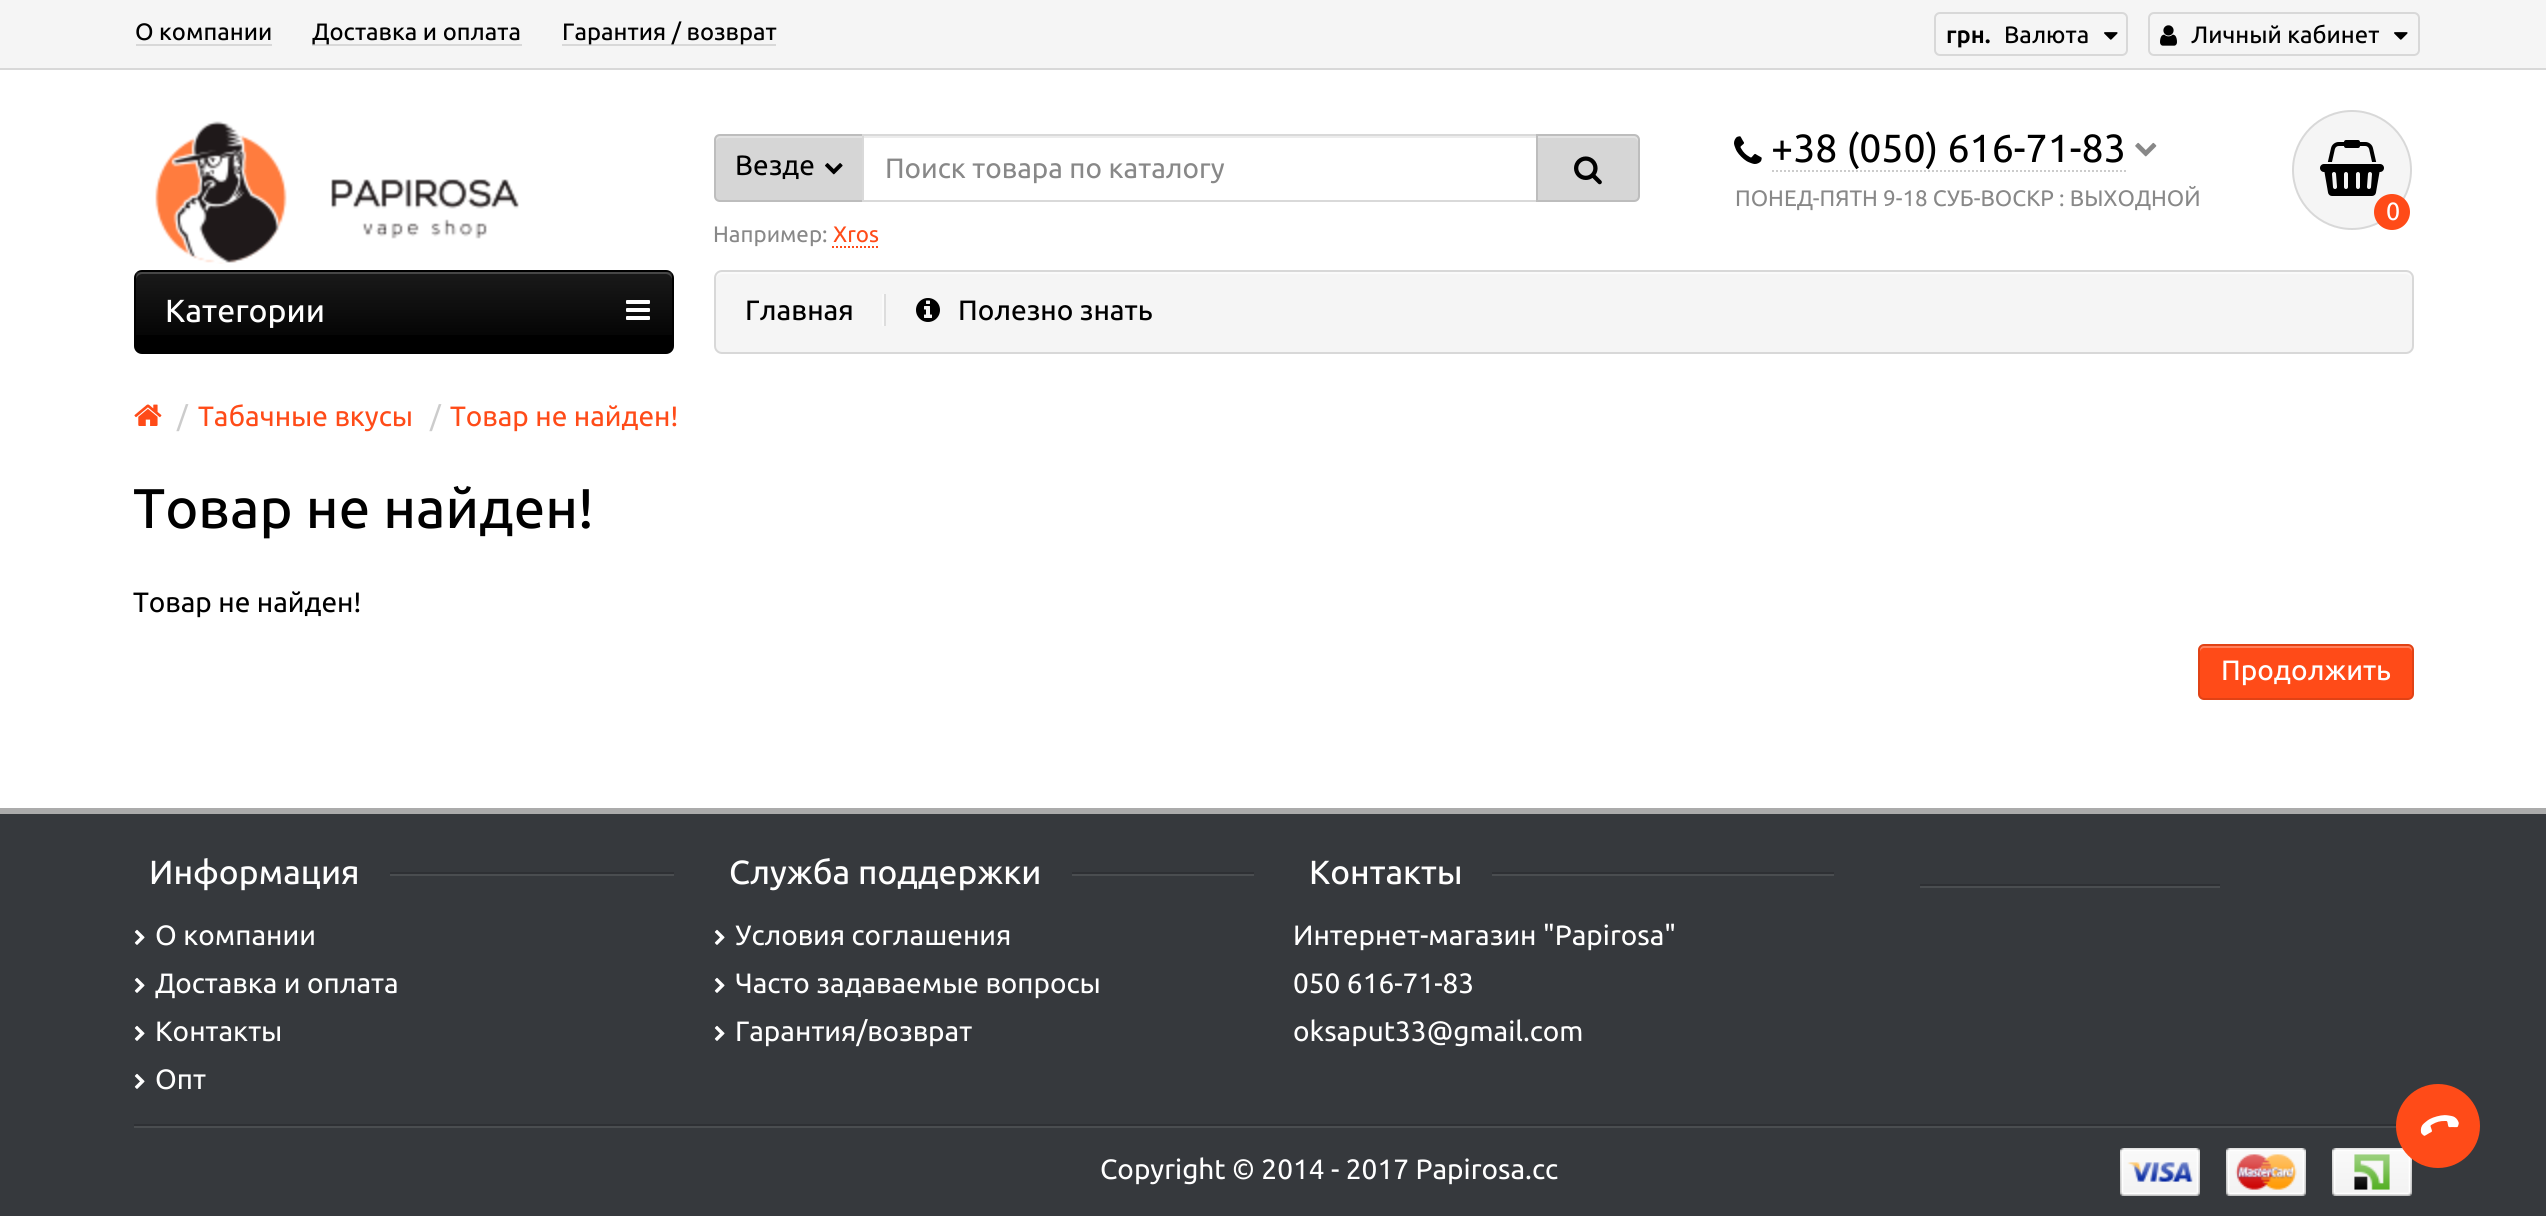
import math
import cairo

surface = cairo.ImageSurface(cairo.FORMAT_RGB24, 2546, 1216)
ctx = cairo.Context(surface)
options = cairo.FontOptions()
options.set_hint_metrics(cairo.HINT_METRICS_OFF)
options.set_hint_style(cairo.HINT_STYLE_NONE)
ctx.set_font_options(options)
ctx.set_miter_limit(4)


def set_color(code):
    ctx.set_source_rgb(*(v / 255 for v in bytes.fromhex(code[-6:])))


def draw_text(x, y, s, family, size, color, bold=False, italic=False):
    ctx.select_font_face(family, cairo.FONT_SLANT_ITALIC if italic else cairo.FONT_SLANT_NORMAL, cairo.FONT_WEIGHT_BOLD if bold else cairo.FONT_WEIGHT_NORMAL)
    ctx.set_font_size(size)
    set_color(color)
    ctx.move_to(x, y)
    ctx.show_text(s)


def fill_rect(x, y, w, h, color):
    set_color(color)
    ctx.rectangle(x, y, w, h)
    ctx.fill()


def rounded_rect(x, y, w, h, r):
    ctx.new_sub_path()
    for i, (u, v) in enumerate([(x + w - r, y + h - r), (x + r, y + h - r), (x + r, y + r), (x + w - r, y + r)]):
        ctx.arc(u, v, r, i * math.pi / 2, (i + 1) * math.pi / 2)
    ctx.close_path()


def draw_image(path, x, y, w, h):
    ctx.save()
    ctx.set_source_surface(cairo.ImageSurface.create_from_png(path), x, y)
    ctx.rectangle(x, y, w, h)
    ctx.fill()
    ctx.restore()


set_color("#ffffff")
ctx.paint()
fill_rect(0, 0, 2546, 68, "#f5f5f5")
fill_rect(0, 68, 2546, 2, "#d8d8d8")
draw_text(135, 40, "О компании", "Ubuntu Medium", 23.75, "#000000")
fill_rect(136, 44, 136, 2, "#d8d8d8")
fill_rect(312, 44, 210, 2, "#d8d8d8")
draw_text(312, 40, "Доставка и оплата", "Ubuntu Medium", 23.75, "#000000")
fill_rect(562, 44, 214, 2, "#d8d8d8")
draw_text(562, 40, "Гарантия / возврат", "Ubuntu Medium", 23.75, "#000000")
rounded_rect(1935, 13, 192, 42, 5)
set_color("#d8d8d8")
ctx.stroke()
draw_text(1946, 43, "грн.", "Ubuntu", 23.75, "#000000", bold=True)
draw_text(2004, 43, "Валюта", "Ubuntu Medium", 23.75, "#000000")
draw_image("assets/img1.png", 2104, 32, 14, 8)
rounded_rect(2149, 13, 270, 42, 5)
set_color("#d8d8d8")
ctx.stroke()
draw_image("assets/img2.png", 2160, 25, 17, 21)
draw_text(2191, 43, "Личный кабинет", "Ubuntu Medium", 23.75, "#000000")
draw_image("assets/img1.png", 2394, 32, 14, 8)
draw_image("assets/img3.png", 155, 121, 364, 143)
set_color("#d6d6d6")
ctx.new_path()
ctx.move_to(720, 134)
ctx.line_to(866, 134)
ctx.line_to(866, 202)
ctx.line_to(720, 202)
ctx.curve_to(716.5, 202, 714, 199.5, 714, 196)
ctx.line_to(714, 140)
ctx.curve_to(714, 136.5, 716.5, 134, 720, 134)
ctx.close_path()
ctx.fill()
set_color("#e2e2e2")
ctx.new_path()
ctx.move_to(720, 138)
ctx.line_to(864, 138)
ctx.line_to(864, 136)
ctx.line_to(720, 136)
ctx.curve_to(718, 136, 716, 138, 716, 140)
ctx.line_to(716, 142)
ctx.curve_to(716, 140, 718, 138, 720, 138)
ctx.close_path()
ctx.fill()
ctx.new_path()
ctx.move_to(720, 135)
ctx.line_to(865, 135)
ctx.line_to(865, 201)
ctx.line_to(720, 201)
ctx.curve_to(717, 201, 715, 199, 715, 196)
ctx.line_to(715, 140)
ctx.curve_to(715, 137, 717, 135, 720, 135)
ctx.close_path()
ctx.set_source_rgba(0, 0, 0, 0.12)
ctx.stroke()
draw_text(735, 175, "Везде", "Ubuntu", 28, "#000000")
draw_image("assets/img4.png", 825, 163, 18, 12)
fill_rect(864, 138, 2, 62, "#ffffff")
fill_rect(864, 136, 672, 2, "#ececec")
ctx.rectangle(863, 135, 674, 66)
set_color("#d9d9d9")
ctx.stroke()
draw_text(885, 178, "Поиск товара по каталогу", "Ubuntu", 28, "#888888")
set_color("#d6d6d6")
ctx.new_path()
ctx.move_to(1536, 134)
ctx.line_to(1634, 134)
ctx.curve_to(1637.5, 134, 1640, 136.5, 1640, 140)
ctx.line_to(1640, 196)
ctx.curve_to(1640, 199.5, 1637.5, 202, 1634, 202)
ctx.line_to(1536, 202)
ctx.close_path()
ctx.fill()
set_color("#e2e2e2")
ctx.new_path()
ctx.move_to(1538, 138)
ctx.line_to(1634, 138)
ctx.curve_to(1636, 138, 1638, 140, 1638, 142)
ctx.line_to(1638, 140)
ctx.curve_to(1638, 138, 1636, 136, 1634, 136)
ctx.line_to(1538, 136)
ctx.close_path()
ctx.fill()
ctx.new_path()
ctx.move_to(1537, 135)
ctx.line_to(1634, 135)
ctx.curve_to(1637, 135, 1639, 137, 1639, 140)
ctx.line_to(1639, 196)
ctx.curve_to(1639, 199, 1637, 201, 1634, 201)
ctx.line_to(1537, 201)
ctx.close_path()
ctx.set_source_rgba(0, 0, 0, 0.12)
ctx.stroke()
draw_image("assets/img5.png", 1574, 156, 28, 29)
draw_text(713, 242, "Например:", "Ubuntu", 22.4, "#888888")
draw_text(833, 242, "Xros", "Ubuntu", 22.4, "#ff4b18")
ctx.new_path()
ctx.move_to(832, 247)
ctx.line_to(878, 247)
ctx.set_dash([2, 2])
ctx.stroke()
draw_image("assets/img6.png", 1734, 136, 28, 28)
draw_text(1771, 162, "+38 (050) 616-71-83", "Ubuntu", 39.25, "#000000")
ctx.new_path()
ctx.move_to(1772, 171)
ctx.line_to(2126, 171)
set_color("#cccccc")
ctx.stroke()
draw_image("assets/img7.png", 2135, 142, 22, 15)
draw_text(1735, 206, "ПОНЕД-ПЯТН 9-18 СУБ-ВОСКР : ВЫХОДНОЙ", "Ubuntu", 22.4, "#888888")
set_color("#f5f5f5")
ctx.new_path()
ctx.arc(2352, 170, 60, 0, 2 * math.pi)
ctx.fill()
ctx.arc(2352, 170, 59, 0, 2 * math.pi)
ctx.set_source_rgba(0, 0, 0, 0.12)
ctx.set_dash([])
ctx.stroke()
draw_image("assets/img8.png", 2320, 140, 64, 56)
set_color("#ff4b18")
ctx.arc(2392, 212, 18, 0, 2 * math.pi)
ctx.fill()
draw_text(2386, 220, "0", "Ubuntu", 25, "#ffffff")
set_color("#000000")
rounded_rect(134, 270, 540, 84, 8)
ctx.fill()
set_color("#333333")
ctx.new_path()
ctx.move_to(142, 274)
ctx.line_to(666, 274)
ctx.curve_to(669, 274, 672, 277, 672, 280)
ctx.curve_to(672, 276, 671, 272, 666, 272)
ctx.line_to(142, 272)
ctx.curve_to(137, 272, 136, 276, 136, 280)
ctx.curve_to(136, 277, 139, 274, 142, 274)
ctx.close_path()
ctx.fill()
rounded_rect(135, 271, 538, 82, 7)
ctx.set_source_rgba(0, 0, 0, 0.1)
ctx.stroke()
gradient = cairo.LinearGradient(404, 272, 404, 352)
gradient.add_color_stop_rgba(0, 1, 1, 1, 0.1)
gradient.add_color_stop_rgba(1, 1, 1, 1, 0)
ctx.set_source(gradient)
ctx.rectangle(136, 272, 536, 63)
ctx.fill()
draw_text(165, 322, "Категории", "Ubuntu Medium", 32, "#ffffff")
draw_image("assets/img9.png", 626, 300, 24, 20)
set_color("#f5f5f5")
rounded_rect(714, 270, 1700, 84, 8)
ctx.fill()
set_color("#fafafa")
ctx.new_path()
ctx.move_to(722, 274)
ctx.line_to(2406, 274)
ctx.curve_to(2409, 274, 2412, 277, 2412, 280)
ctx.curve_to(2412, 276, 2411, 272, 2406, 272)
ctx.line_to(722, 272)
ctx.curve_to(717, 272, 716, 276, 716, 280)
ctx.curve_to(716, 277, 719, 274, 722, 274)
ctx.close_path()
ctx.fill()
rounded_rect(715, 271, 1698, 82, 7)
ctx.set_source_rgba(0, 0, 0, 0.12)
ctx.stroke()
draw_text(745, 320, "Главная", "Ubuntu Medium", 28, "#000000")
fill_rect(882, 294, 2, 32, "#fafafa")
fill_rect(884, 294, 2, 32, "#dddddd")
draw_image("assets/img10.png", 916, 298, 24, 24)
draw_text(958, 320, "Полезно знать", "Ubuntu Medium", 28, "#000000")
draw_image("assets/img11.png", 134, 404, 28, 22)
draw_text(177, 426, "/", "Ubuntu", 28, "#cccccc")
draw_text(198, 426, "Табачные вкусы", "Ubuntu", 28, "#ff4b18")
draw_text(430, 426, "/", "Ubuntu", 28, "#cccccc")
draw_text(450, 426, "Товар не найден!", "Ubuntu", 28, "#ff4b18")
draw_text(133, 528, "Товар не найден!", "Ubuntu Medium", 56, "#000000")
draw_text(133, 612, "Товар не найден!", "Ubuntu", 28, "#000000")
set_color("#ff4b18")
rounded_rect(2198, 644, 216, 56, 6)
ctx.fill()
set_color("#ff815d")
ctx.new_path()
ctx.move_to(2204, 648)
ctx.line_to(2408, 648)
ctx.curve_to(2410, 648, 2412, 650, 2412, 652)
ctx.curve_to(2412, 649, 2412, 647, 2409, 646)
ctx.line_to(2203, 646)
ctx.curve_to(2200, 647, 2200, 649, 2200, 652)
ctx.curve_to(2200, 650, 2202, 648, 2204, 648)
ctx.close_path()
ctx.fill()
rounded_rect(2199, 645, 214, 54, 5)
ctx.set_source_rgba(0, 0, 0, 0.12)
ctx.stroke()
draw_text(2221, 680, "Продолжить", "Ubuntu Medium", 28, "#ffffff")
fill_rect(0, 814, 2546, 402, "#36393d")
fill_rect(0, 808, 2546, 6, "#ababab")
draw_text(149, 884, "Информация", "Ubuntu Medium", 33.5, "#ffffff")
fill_rect(390, 872, 284, 2, "#2e3034")
fill_rect(390, 874, 284, 2, "#4a4d50")
draw_image("assets/img12.png", 134, 929, 11, 16)
draw_text(155, 945, "О компании", "Ubuntu", 28, "#ffffff")
draw_image("assets/img12.png", 134, 977, 11, 16)
draw_text(155, 993, "Доставка и оплата", "Ubuntu", 28, "#ffffff")
draw_image("assets/img12.png", 134, 1025, 11, 16)
draw_text(155, 1041, "Контакты", "Ubuntu", 28, "#ffffff")
draw_image("assets/img12.png", 134, 1073, 11, 16)
draw_text(155, 1089, "Опт", "Ubuntu", 28, "#ffffff")
draw_text(729, 884, "Служба поддержки", "Ubuntu Medium", 33.5, "#ffffff")
fill_rect(1072, 872, 182, 2, "#2e3034")
fill_rect(1072, 874, 182, 2, "#4a4d50")
draw_image("assets/img12.png", 714, 929, 11, 16)
draw_text(735, 945, "Условия соглашения", "Ubuntu", 28, "#ffffff")
draw_image("assets/img12.png", 714, 977, 11, 16)
draw_text(735, 993, "Часто задаваемые вопросы", "Ubuntu", 28, "#ffffff")
draw_image("assets/img12.png", 714, 1025, 11, 16)
draw_text(735, 1041, "Гарантия/возврат", "Ubuntu", 28, "#ffffff")
draw_text(1309, 884, "Контакты", "Ubuntu Medium", 33.5, "#ffffff")
fill_rect(1492, 872, 342, 2, "#2e3034")
fill_rect(1492, 874, 342, 2, "#4a4d50")
draw_text(1293, 945, "Интернет-магазин \"Papirosa\"", "Ubuntu", 28, "#ffffff")
draw_text(1293, 993, "050 616-71-83", "Ubuntu", 28, "#ffffff")
draw_text(1293, 1041, "oksaput33@gmail.com", "Ubuntu", 28, "#ffffff")
fill_rect(1920, 884, 300, 2, "#2e3034")
fill_rect(1920, 886, 300, 2, "#4a4d50")
fill_rect(134, 1124, 2263, 2, "#2e3034")
fill_rect(134, 1126, 2263, 2, "#4a4d50")
draw_text(1100, 1179, "Copyright © 2014 - 2017 Papirosa.cc", "Ubuntu", 28, "#ffffff")
draw_image("assets/img13.png", 2120, 1148, 80, 48)
draw_image("assets/img14.png", 2226, 1148, 80, 48)
draw_image("assets/img15.png", 2332, 1148, 80, 48)
set_color("#ff4b18")
ctx.arc(2438, 1126, 40, 0, 2 * math.pi)
ctx.fill()
draw_image("assets/img16.png", 2420, 1115, 39, 21)
ctx.arc(2438, 1126, 40, 0, 2 * math.pi)
ctx.set_line_width(4)
ctx.stroke()
surface.write_to_png("output.png")
